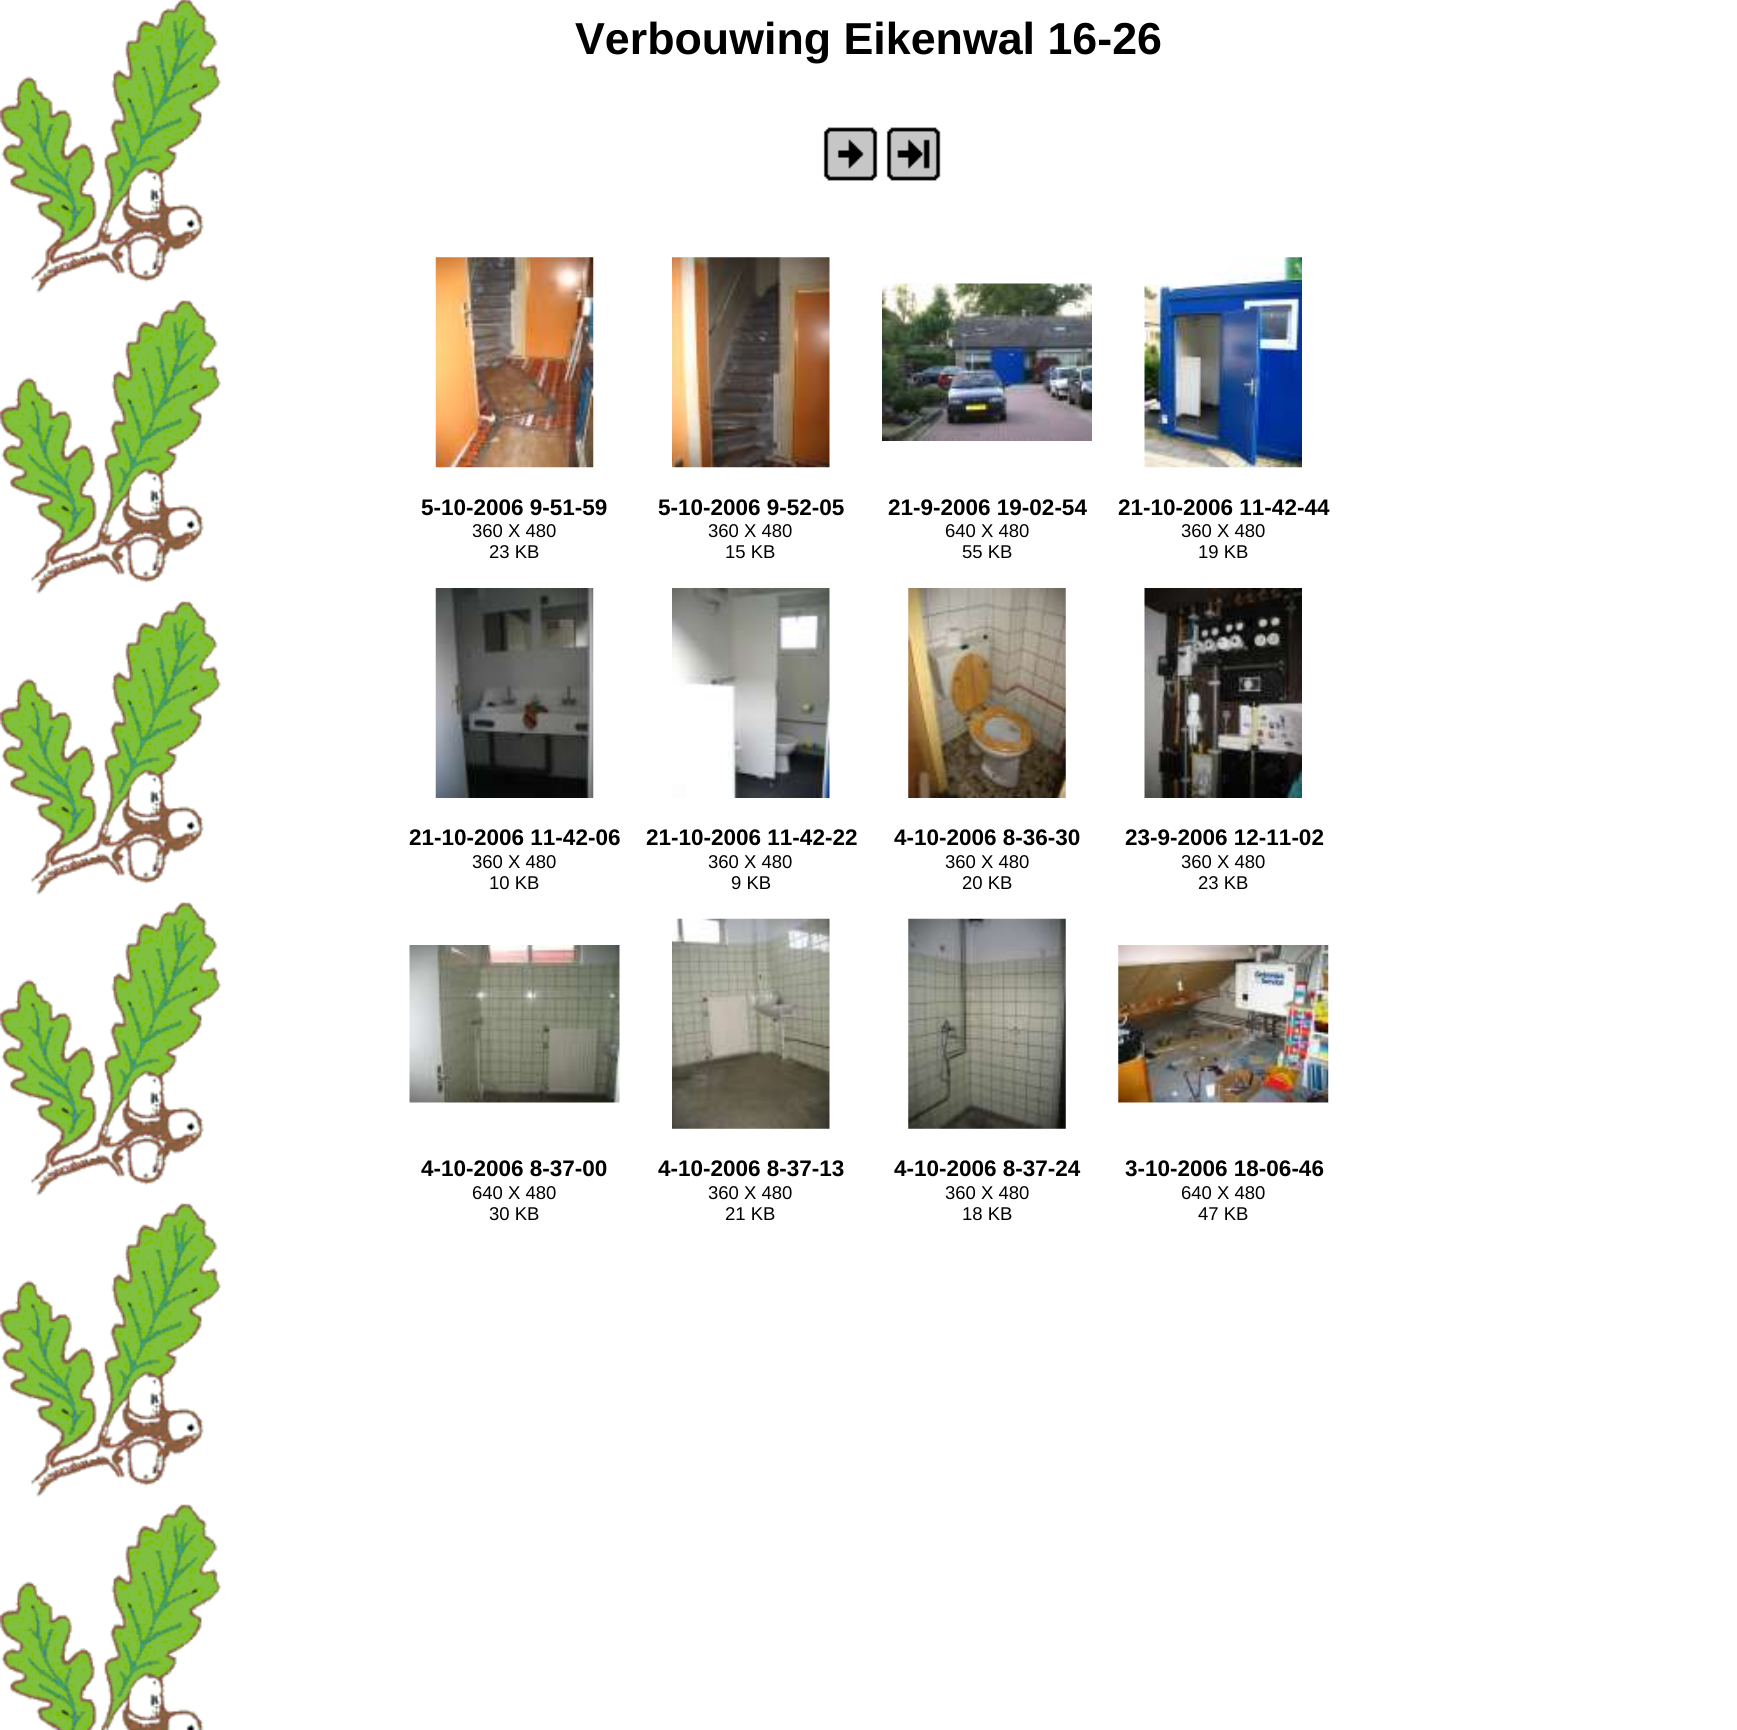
import math
import cairo

surface = cairo.ImageSurface(cairo.FORMAT_RGB24, 1737, 1730)
ctx = cairo.Context(surface)
options = cairo.FontOptions()
options.set_hint_metrics(cairo.HINT_METRICS_OFF)
options.set_hint_style(cairo.HINT_STYLE_NONE)
ctx.set_font_options(options)
ctx.set_miter_limit(4)


def set_color(code):
    ctx.set_source_rgb(*(v / 255 for v in bytes.fromhex(code[-6:])))


def draw_text(x, y, s, family, size, color, bold=False, italic=False):
    ctx.select_font_face(family, cairo.FONT_SLANT_ITALIC if italic else cairo.FONT_SLANT_NORMAL, cairo.FONT_WEIGHT_BOLD if bold else cairo.FONT_WEIGHT_NORMAL)
    ctx.set_font_size(size)
    set_color(color)
    ctx.move_to(x, y)
    ctx.show_text(s)


def draw_image(path, x, y, w, h):
    ctx.save()
    ctx.set_source_surface(cairo.ImageSurface.create_from_png(path), x, y)
    ctx.rectangle(x, y, w, h)
    ctx.fill()
    ctx.restore()


set_color("#ffffff")
ctx.paint()
draw_image("assets/img1.png", 0, 0, 221, 1730)
draw_text(575, 54, "Verbouwing Eikenwal 16-26", "Liberation Sans", 44.75, "#000000", bold=True)
draw_image("assets/img2.png", 823, 127, 55, 54)
draw_image("assets/img3.png", 886, 127, 55, 54)
draw_image("assets/img4.png", 435, 257, 159, 211)
draw_image("assets/img5.png", 672, 257, 158, 211)
draw_image("assets/img6.png", 882, 283, 210, 158)
draw_image("assets/img7.png", 1144, 257, 158, 211)
draw_text(421, 515, "5-10-2006 9-51-59", "Liberation Sans", 22.5, "#000000", bold=True)
draw_text(472, 537, "360 X 480", "Liberation Sans", 18.5, "#000000")
draw_text(489, 558, "23 KB", "Liberation Sans", 18.5, "#000000")
draw_text(658, 515, "5-10-2006 9-52-05", "Liberation Sans", 22.5, "#000000", bold=True)
draw_text(708, 537, "360 X 480", "Liberation Sans", 18.5, "#000000")
draw_text(725, 558, "15 KB", "Liberation Sans", 18.5, "#000000")
draw_text(888, 515, "21-9-2006 19-02-54", "Liberation Sans", 22.5, "#000000", bold=True)
draw_text(945, 537, "640 X 480", "Liberation Sans", 18.5, "#000000")
draw_text(962, 558, "55 KB", "Liberation Sans", 18.5, "#000000")
draw_text(1118, 515, "21-10-2006 11-42-44", "Liberation Sans", 22.5, "#000000", bold=True)
draw_text(1181, 537, "360 X 480", "Liberation Sans", 18.5, "#000000")
draw_text(1198, 558, "19 KB", "Liberation Sans", 18.5, "#000000")
draw_image("assets/img8.png", 435, 588, 159, 210)
draw_image("assets/img9.png", 672, 588, 158, 210)
draw_image("assets/img10.png", 908, 588, 158, 210)
draw_image("assets/img11.png", 1144, 588, 158, 210)
draw_text(409, 845, "21-10-2006 11-42-06", "Liberation Sans", 22.5, "#000000", bold=True)
draw_text(472, 868, "360 X 480", "Liberation Sans", 18.5, "#000000")
draw_text(489, 889, "10 KB", "Liberation Sans", 18.5, "#000000")
draw_text(646, 845, "21-10-2006 11-42-22", "Liberation Sans", 22.5, "#000000", bold=True)
draw_text(708, 868, "360 X 480", "Liberation Sans", 18.5, "#000000")
draw_text(731, 889, "9 KB", "Liberation Sans", 18.5, "#000000")
draw_text(894, 845, "4-10-2006 8-36-30", "Liberation Sans", 22.5, "#000000", bold=True)
draw_text(945, 868, "360 X 480", "Liberation Sans", 18.5, "#000000")
draw_text(962, 889, "20 KB", "Liberation Sans", 18.5, "#000000")
draw_text(1125, 845, "23-9-2006 12-11-02", "Liberation Sans", 22.5, "#000000", bold=True)
draw_text(1181, 868, "360 X 480", "Liberation Sans", 18.5, "#000000")
draw_text(1198, 889, "23 KB", "Liberation Sans", 18.5, "#000000")
draw_image("assets/img12.png", 409, 945, 211, 158)
draw_image("assets/img13.png", 672, 918, 158, 211)
draw_image("assets/img14.png", 908, 918, 158, 211)
draw_image("assets/img15.png", 1118, 945, 211, 158)
draw_text(421, 1176, "4-10-2006 8-37-00", "Liberation Sans", 22.5, "#000000", bold=True)
draw_text(472, 1199, "640 X 480", "Liberation Sans", 18.5, "#000000")
draw_text(489, 1220, "30 KB", "Liberation Sans", 18.5, "#000000")
draw_text(658, 1176, "4-10-2006 8-37-13", "Liberation Sans", 22.5, "#000000", bold=True)
draw_text(708, 1199, "360 X 480", "Liberation Sans", 18.5, "#000000")
draw_text(725, 1220, "21 KB", "Liberation Sans", 18.5, "#000000")
draw_text(894, 1176, "4-10-2006 8-37-24", "Liberation Sans", 22.5, "#000000", bold=True)
draw_text(945, 1199, "360 X 480", "Liberation Sans", 18.5, "#000000")
draw_text(962, 1220, "18 KB", "Liberation Sans", 18.5, "#000000")
draw_text(1125, 1176, "3-10-2006 18-06-46", "Liberation Sans", 22.5, "#000000", bold=True)
draw_text(1181, 1199, "640 X 480", "Liberation Sans", 18.5, "#000000")
draw_text(1198, 1220, "47 KB", "Liberation Sans", 18.5, "#000000")
surface.write_to_png("output.png")
